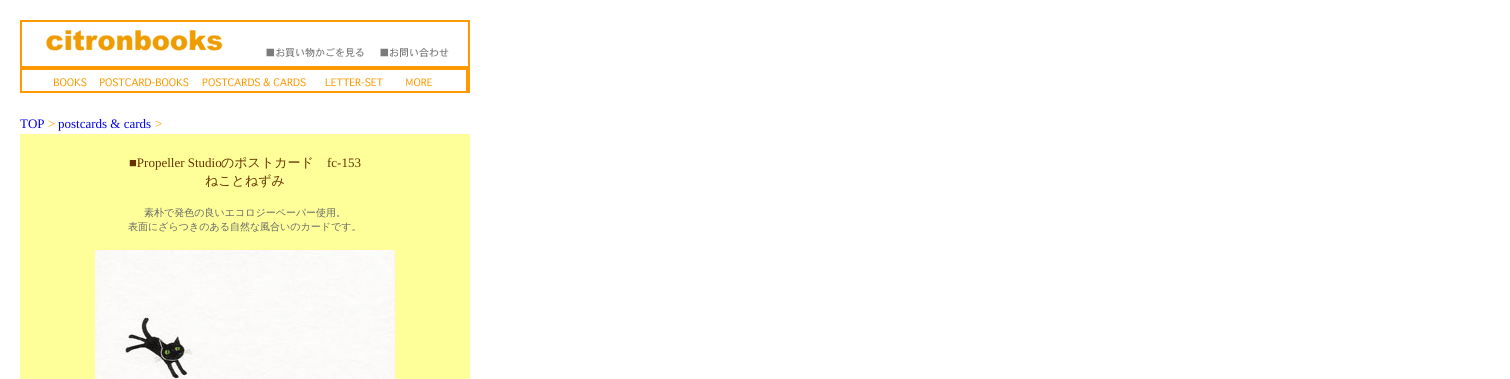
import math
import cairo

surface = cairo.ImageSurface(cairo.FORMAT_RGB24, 1510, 379)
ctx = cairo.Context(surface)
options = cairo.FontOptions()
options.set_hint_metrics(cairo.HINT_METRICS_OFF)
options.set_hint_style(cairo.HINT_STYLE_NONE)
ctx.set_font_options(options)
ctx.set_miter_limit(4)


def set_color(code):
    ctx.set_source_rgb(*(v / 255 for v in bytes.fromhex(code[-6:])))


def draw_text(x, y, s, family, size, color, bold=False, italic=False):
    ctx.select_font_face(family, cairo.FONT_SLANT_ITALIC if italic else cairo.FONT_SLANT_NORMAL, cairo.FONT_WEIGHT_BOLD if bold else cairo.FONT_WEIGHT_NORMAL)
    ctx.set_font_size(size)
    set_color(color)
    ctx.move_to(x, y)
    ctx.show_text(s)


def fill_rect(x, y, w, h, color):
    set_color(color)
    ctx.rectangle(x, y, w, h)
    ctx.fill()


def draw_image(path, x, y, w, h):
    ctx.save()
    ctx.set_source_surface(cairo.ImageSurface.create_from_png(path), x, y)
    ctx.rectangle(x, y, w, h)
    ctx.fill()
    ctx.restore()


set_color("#ffffff")
ctx.paint()
ctx.rectangle(20.5, 20.5, 449, 47)
set_color("#ff9900")
ctx.set_line_width(1)
ctx.stroke()
ctx.rectangle(21.5, 21.5, 447, 45)
ctx.stroke()
draw_image("assets/img1.png", 46, 30, 177, 21)
draw_image("assets/img2.png", 266, 47, 98, 10)
draw_image("assets/img3.png", 380, 47, 69, 10)
ctx.rectangle(20.5, 68.5, 449, 24)
ctx.stroke()
ctx.rectangle(21.5, 69.5, 445, 22)
ctx.stroke()
draw_image("assets/img4.png", 54, 78, 33, 9)
draw_image("assets/img5.png", 100, 78, 89, 9)
draw_image("assets/img6.png", 202, 78, 104, 9)
draw_image("assets/img7.png", 325, 78, 58, 9)
draw_image("assets/img8.png", 406, 78, 26, 9)
fill_rect(467, 69, 2, 23, "#ff9900")
draw_text(20, 128, "TOP", "Liberation Serif", 13, "#0000ee")
draw_text(48, 128, ">", "Liberation Serif", 13, "#ff9900")
draw_text(58, 128, "postcards & cards", "Liberation Serif", 13, "#0000ee")
draw_text(155, 128, ">", "Liberation Serif", 13, "#ff9900")
fill_rect(20, 134, 450, 245, "#ffff99")
draw_text(129, 167, "■Propeller Studio", "Liberation Serif", 13, "#663300")
draw_text(221, 167, "のポストカード", "WenQuanYi Zen Hei Medium", 13, "#663300")
draw_text(327, 167, "fc-153", "Liberation Serif", 13, "#663300")
draw_text(205, 185, "ねことねずみ", "WenQuanYi Zen Hei Medium", 13, "#663300")
draw_text(144, 216, "素朴で発色の良いエコロジーペーパー使用。", "WenQuanYi Zen Hei Medium", 10, "#666666")
draw_text(128, 230, "表面にざらつきのある自然な風合いのカードです。", "WenQuanYi Zen Hei Medium", 10, "#666666")
draw_image("assets/img9.png", 95, 250, 300, 129)
surface.write_to_png("output.png")
